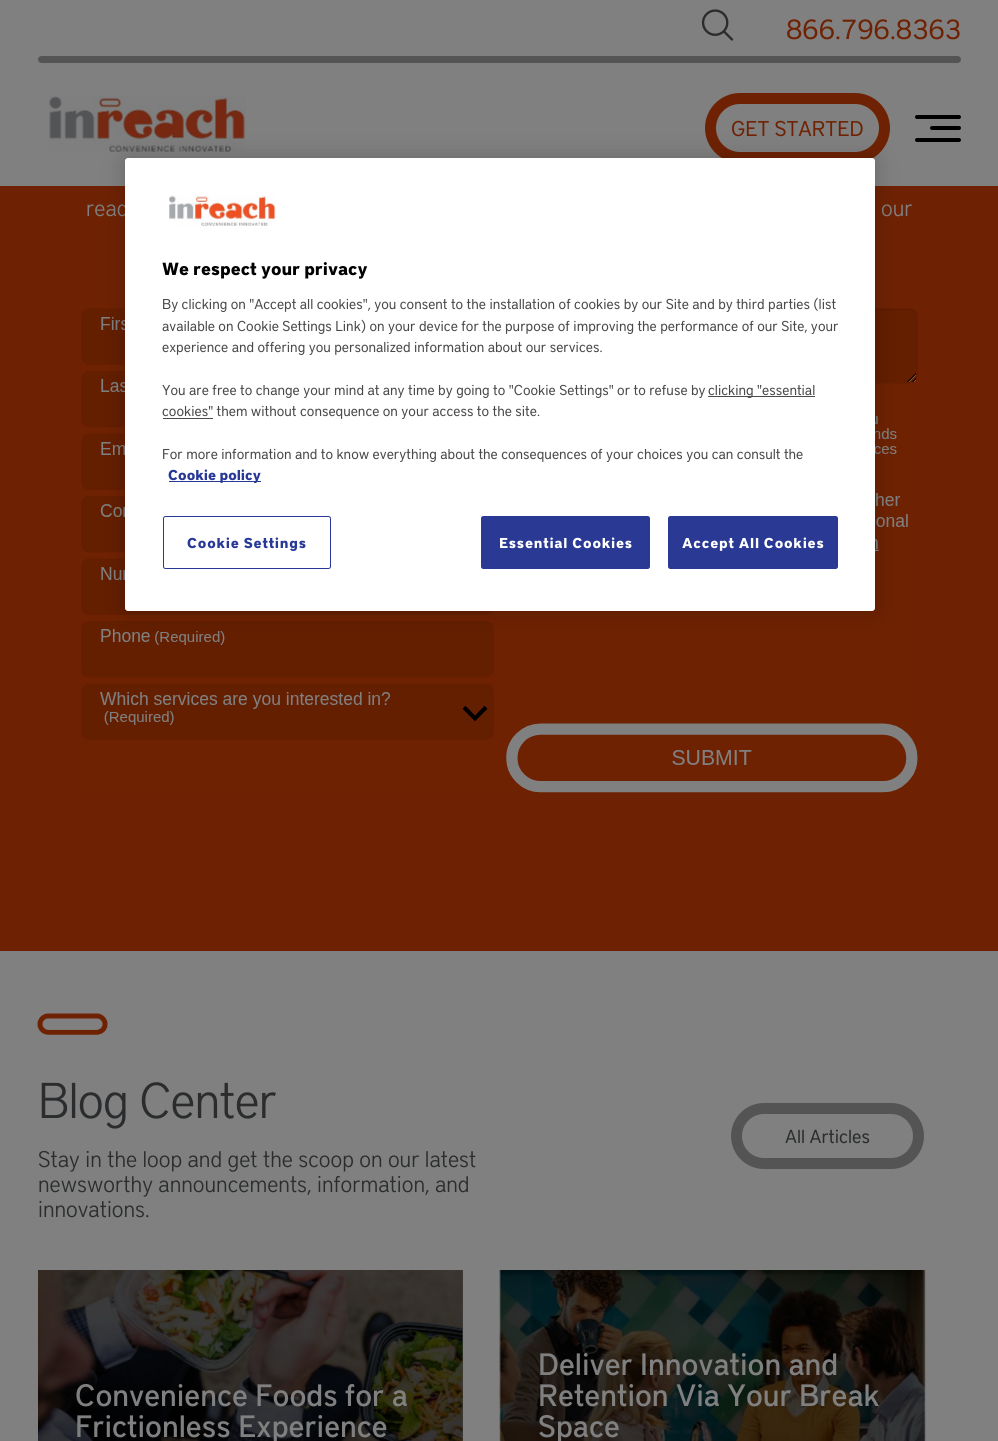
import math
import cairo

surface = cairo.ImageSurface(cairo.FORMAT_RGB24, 998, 1441)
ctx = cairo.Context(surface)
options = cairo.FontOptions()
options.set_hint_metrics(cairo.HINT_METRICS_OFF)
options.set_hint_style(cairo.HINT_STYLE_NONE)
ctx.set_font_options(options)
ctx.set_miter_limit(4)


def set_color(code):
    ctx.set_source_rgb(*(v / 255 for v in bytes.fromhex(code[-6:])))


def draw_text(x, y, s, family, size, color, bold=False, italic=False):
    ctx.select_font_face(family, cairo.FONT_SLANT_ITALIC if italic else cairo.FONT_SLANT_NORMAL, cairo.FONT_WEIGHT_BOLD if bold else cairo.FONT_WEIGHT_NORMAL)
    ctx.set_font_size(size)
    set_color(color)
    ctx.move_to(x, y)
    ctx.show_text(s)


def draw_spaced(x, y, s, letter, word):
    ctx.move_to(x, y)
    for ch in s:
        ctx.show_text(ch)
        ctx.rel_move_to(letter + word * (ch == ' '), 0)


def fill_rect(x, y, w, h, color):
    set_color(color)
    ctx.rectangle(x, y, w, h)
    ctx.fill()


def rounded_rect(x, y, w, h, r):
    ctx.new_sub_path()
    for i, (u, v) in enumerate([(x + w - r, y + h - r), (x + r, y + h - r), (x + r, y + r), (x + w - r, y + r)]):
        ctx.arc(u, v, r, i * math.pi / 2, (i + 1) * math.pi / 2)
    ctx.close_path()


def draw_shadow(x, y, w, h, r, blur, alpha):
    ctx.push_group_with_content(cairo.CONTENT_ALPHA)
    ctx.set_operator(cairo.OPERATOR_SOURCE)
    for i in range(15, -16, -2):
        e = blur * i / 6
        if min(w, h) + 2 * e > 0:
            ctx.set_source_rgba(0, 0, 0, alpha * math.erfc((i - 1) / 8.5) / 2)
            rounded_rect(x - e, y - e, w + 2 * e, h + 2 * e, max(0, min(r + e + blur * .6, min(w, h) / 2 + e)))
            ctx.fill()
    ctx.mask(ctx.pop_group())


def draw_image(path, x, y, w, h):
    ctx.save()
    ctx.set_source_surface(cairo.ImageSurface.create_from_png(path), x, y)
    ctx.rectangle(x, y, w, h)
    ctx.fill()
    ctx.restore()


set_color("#808080")
ctx.paint()
fill_rect(462, 1270, 1, 171, "#404040")
draw_image("assets/img1.png", 701, 9, 33, 32)
draw_text(786, 39, "866.796.8363", "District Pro", 27.5, "#6e2203")
set_color("#545455")
rounded_rect(38, 56, 923, 7, 3.5)
ctx.fill()
draw_image("assets/img2.png", 49, 95, 197, 57)
rounded_rect(710.5, 98.5, 174, 59, 29.5)
set_color("#6e2203")
ctx.set_line_width(11)
ctx.stroke()
draw_text(731, 136, "GET STARTED", "District Pro", 21.25, "#6e2203")
set_color("#000000")
rounded_rect(915, 115, 46, 4, 2)
ctx.fill()
rounded_rect(930, 126, 31, 4, 2)
ctx.fill()
rounded_rect(915, 138, 46, 4, 2)
ctx.fill()
fill_rect(0, 186, 998, 765, "#6e2203")
draw_text(86, 216, "read", "District Pro Light", 22.5, "#808080")
draw_text(881, 216, "our", "District Pro Light", 22.5, "#808080")
draw_image("assets/img3.png", 81, 308, 837, 485)
draw_image("assets/img4.png", 37, 1013, 71, 22)
ctx.set_font_size(50)
set_color("#2a2c2d")
draw_spaced(38, 1118, "Blog Center", -0.75, 0)
rounded_rect(736.5, 1108.5, 182, 55, 27.5)
set_color("#545455")
ctx.stroke()
draw_text(785, 1143, "All Articles", "District Pro", 18.75, "#2a2c2d")
draw_text(38, 1167, "Stay in the loop and get the scoop on our latest", "District Pro Light", 22.5, "#2a2c2d")
draw_text(38, 1192, "newsworthy announcements, information, and", "District Pro Light", 22.5, "#2a2c2d")
draw_text(38, 1217, "innovations.", "District Pro Light", 22.5, "#2a2c2d")
draw_image("assets/img5.png", 38, 1270, 425, 171)
draw_text(75, 1406, "Convenience Foods for a", "District Pro Medium", 30.75, "#808080")
draw_text(75, 1437, "Frictionless Experience", "District Pro Medium", 30.75, "#808080")
draw_image("assets/img6.png", 499, 1270, 427, 171)
draw_text(538, 1375, "Deliver Innovation and", "District Pro Medium", 30.75, "#808080")
draw_text(538, 1406, "Retention Via Your Break", "District Pro Medium", 30.75, "#808080")
draw_text(538, 1437, "Space", "District Pro Medium", 30.75, "#808080")
set_color("#000000")
draw_shadow(125, 158, 750, 453, 3, 11, 0.2)
set_color("#ffffff")
rounded_rect(125, 158, 750, 453, 3)
ctx.fill()
draw_image("assets/img7.png", 169, 195, 107, 31)
draw_text(162, 275, "We respect your privacy", "District Pro", 17.5, "#000000", bold=True)
draw_text(162, 309, "By clicking on \"Accept all cookies\", you consent to the installation of cookies by our Site and by third parties (list", "District Pro", 14.25, "#4a4a4a")
draw_text(162, 331, "available on Cookie Settings Link) on your device for the purpose of improving the performance of our Site, your", "District Pro", 14.25, "#4a4a4a")
draw_text(162, 352, "experience and offering you personalized information about our services.", "District Pro", 14.25, "#4a4a4a")
draw_text(162, 395, "You are free to change your mind at any time by going to \"Cookie Settings\" or to refuse by", "District Pro", 14.25, "#4a4a4a")
fill_rect(708, 396, 107, 1, "#4a4a4a")
draw_text(708, 395, "clicking \"essential", "District Pro", 14.25, "#4a4a4a")
fill_rect(163, 418, 50, 1, "#4a4a4a")
draw_text(162, 416, "cookies\" them without consequence on your access to the site.", "District Pro", 14.25, "#4a4a4a")
draw_text(162, 459, "For more information and to know everything about the consequences of your choices you can consult the", "District Pro", 14.25, "#4a4a4a")
fill_rect(169, 481, 92, 1, "#283897")
draw_text(168, 480, "Cookie policy", "District Pro", 14.25, "#283897", bold=True)
rounded_rect(163.5, 516.5, 167, 52, 2)
ctx.set_line_width(1)
ctx.stroke()
draw_spaced(187, 548, "Cookie Settings", 0.75, 0)
set_color("#293994")
rounded_rect(481.5, 516.5, 168, 52, 2)
ctx.fill_preserve()
ctx.stroke()
set_color("#ffffff")
draw_spaced(499, 548, "Essential Cookies", 0.75, 0)
set_color("#293994")
rounded_rect(668.5, 516.5, 169, 52, 2)
ctx.fill_preserve()
ctx.stroke()
set_color("#ffffff")
draw_spaced(682, 548, "Accept All Cookies", 0.75, 0)
surface.write_to_png("output.png")
